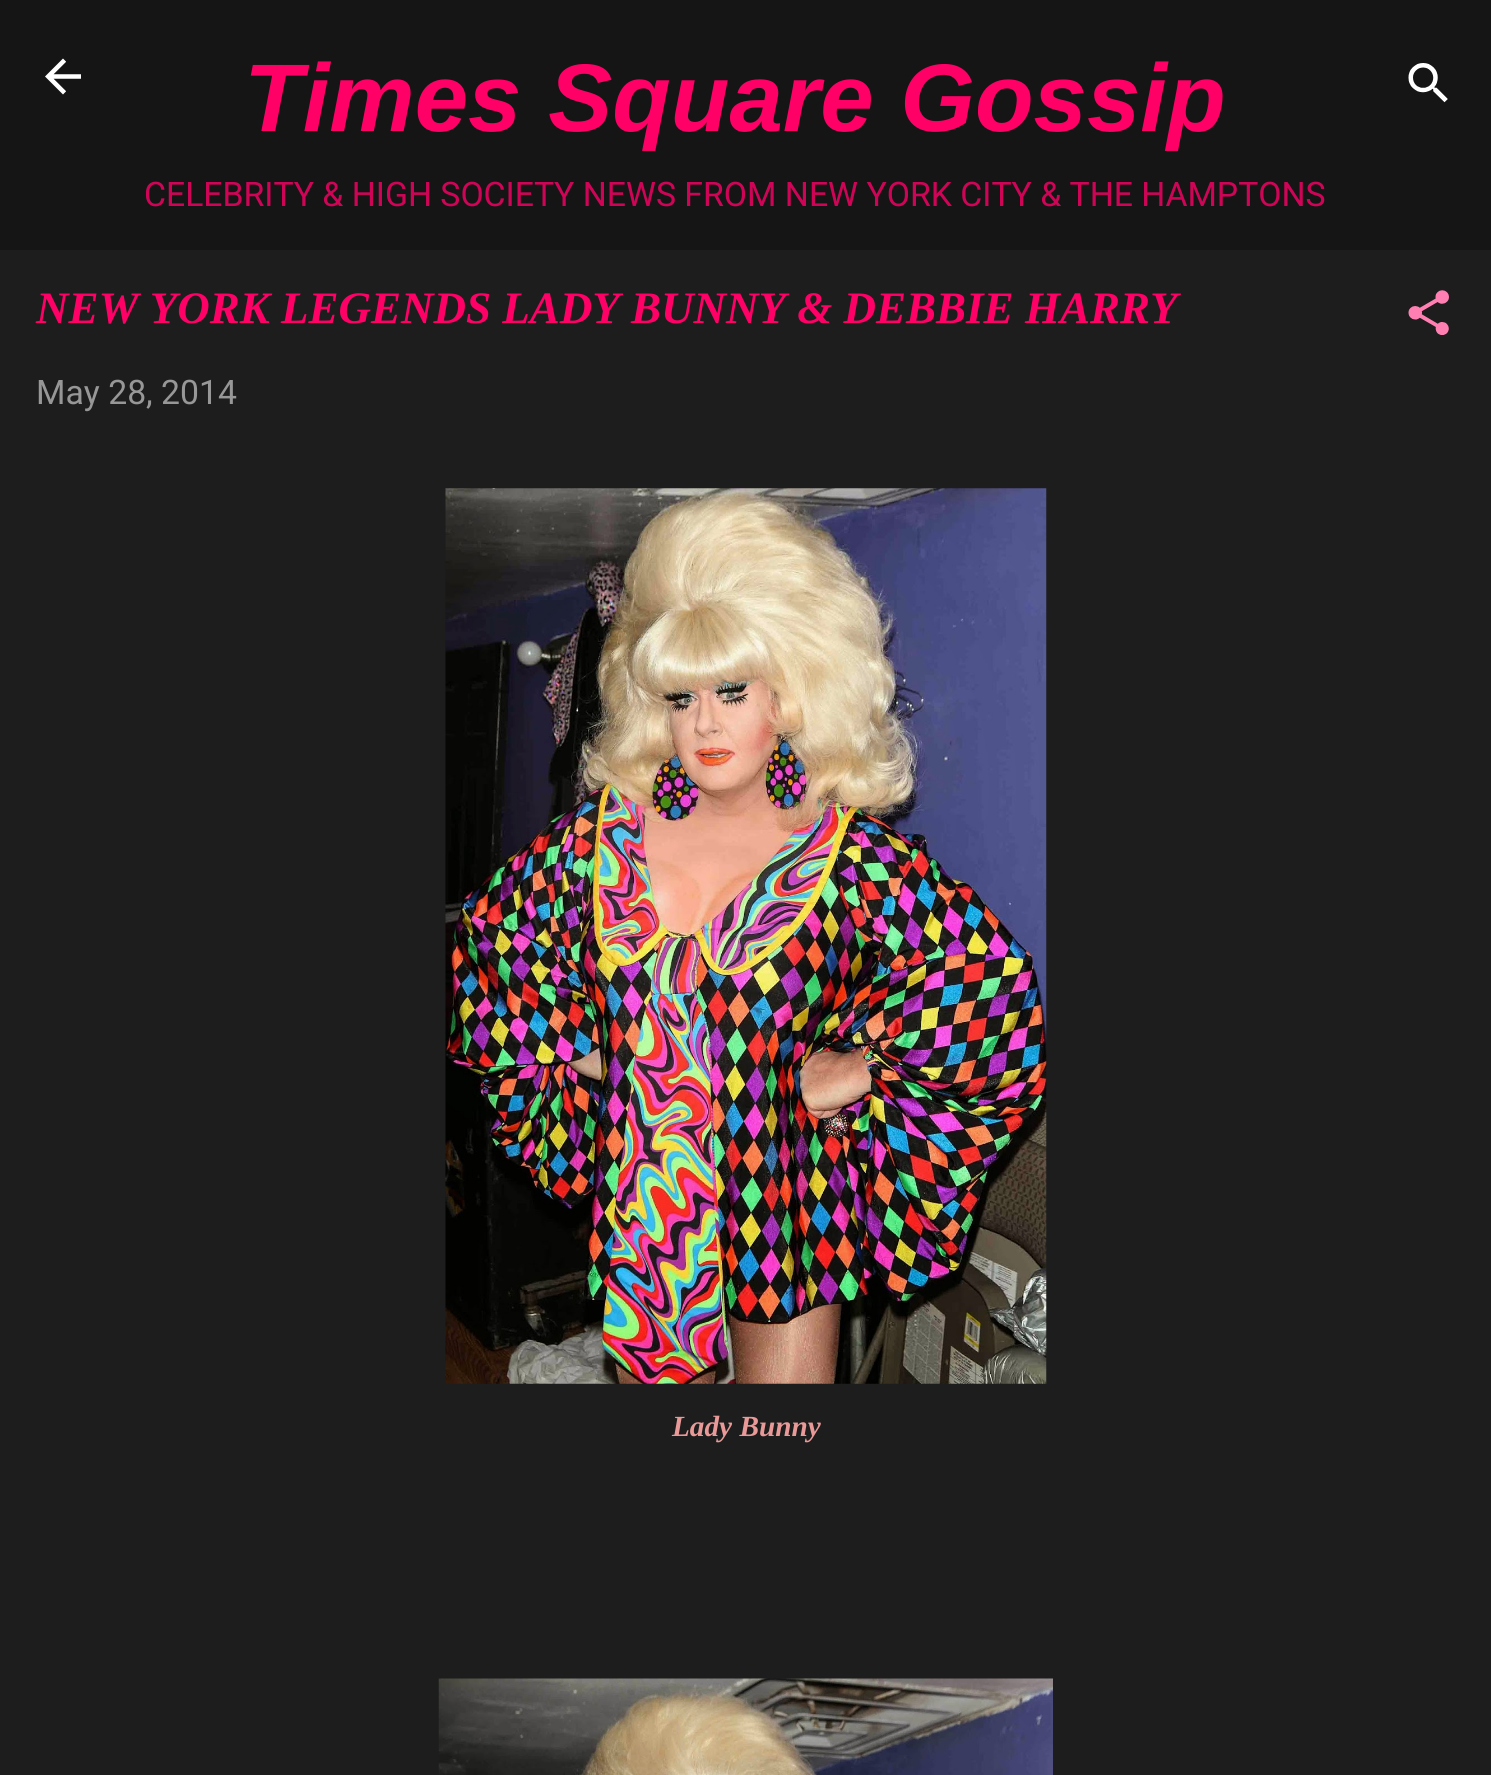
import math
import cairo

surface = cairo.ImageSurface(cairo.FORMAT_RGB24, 1491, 1775)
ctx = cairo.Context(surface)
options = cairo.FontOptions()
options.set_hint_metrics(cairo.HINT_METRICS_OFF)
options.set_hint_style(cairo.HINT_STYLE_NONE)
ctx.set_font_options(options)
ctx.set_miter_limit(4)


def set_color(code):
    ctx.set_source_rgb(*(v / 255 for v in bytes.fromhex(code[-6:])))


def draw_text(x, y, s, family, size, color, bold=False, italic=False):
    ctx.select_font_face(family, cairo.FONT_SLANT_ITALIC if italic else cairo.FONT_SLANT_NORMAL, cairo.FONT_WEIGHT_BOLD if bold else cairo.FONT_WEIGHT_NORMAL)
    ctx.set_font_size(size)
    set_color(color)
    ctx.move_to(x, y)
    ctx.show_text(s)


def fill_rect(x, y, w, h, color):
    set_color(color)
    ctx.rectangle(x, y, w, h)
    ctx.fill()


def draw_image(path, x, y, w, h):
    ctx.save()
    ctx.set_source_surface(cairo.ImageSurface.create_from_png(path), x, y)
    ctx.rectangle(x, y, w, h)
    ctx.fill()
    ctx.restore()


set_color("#151515")
ctx.paint()
draw_image("assets/img1.png", 45, 58, 36, 37)
draw_text(244, 131, "Times Square Gossip", "Liberation Sans", 96, "#ff0067", bold=True, italic=True)
draw_text(144, 206, "CELEBRITY & HIGH SOCIETY NEWS FROM NEW YORK CITY & THE HAMPTONS", "Roboto", 33.75, "#d00457")
draw_image("assets/img2.png", 1408, 63, 40, 40)
fill_rect(0, 250, 1491, 1525, "#1d1d1d")
draw_text(36, 323, "NEW YORK LEGENDS LADY BUNNY & DEBBIE HARRY", "Liberation Serif", 45, "#ff0067", bold=True, italic=True)
draw_image("assets/img3.png", 1408, 290, 41, 45)
draw_text(36, 404, "May 28, 2014", "Roboto", 33.75, "#979797")
draw_image("assets/img4.png", 445, 488, 602, 896)
draw_text(672, 1436, "Lady Bunny", "Liberation Serif", 29.25, "#ea9999", bold=True, italic=True)
draw_image("assets/img5.png", 438, 1678, 615, 97)
surface.write_to_png("output.png")
